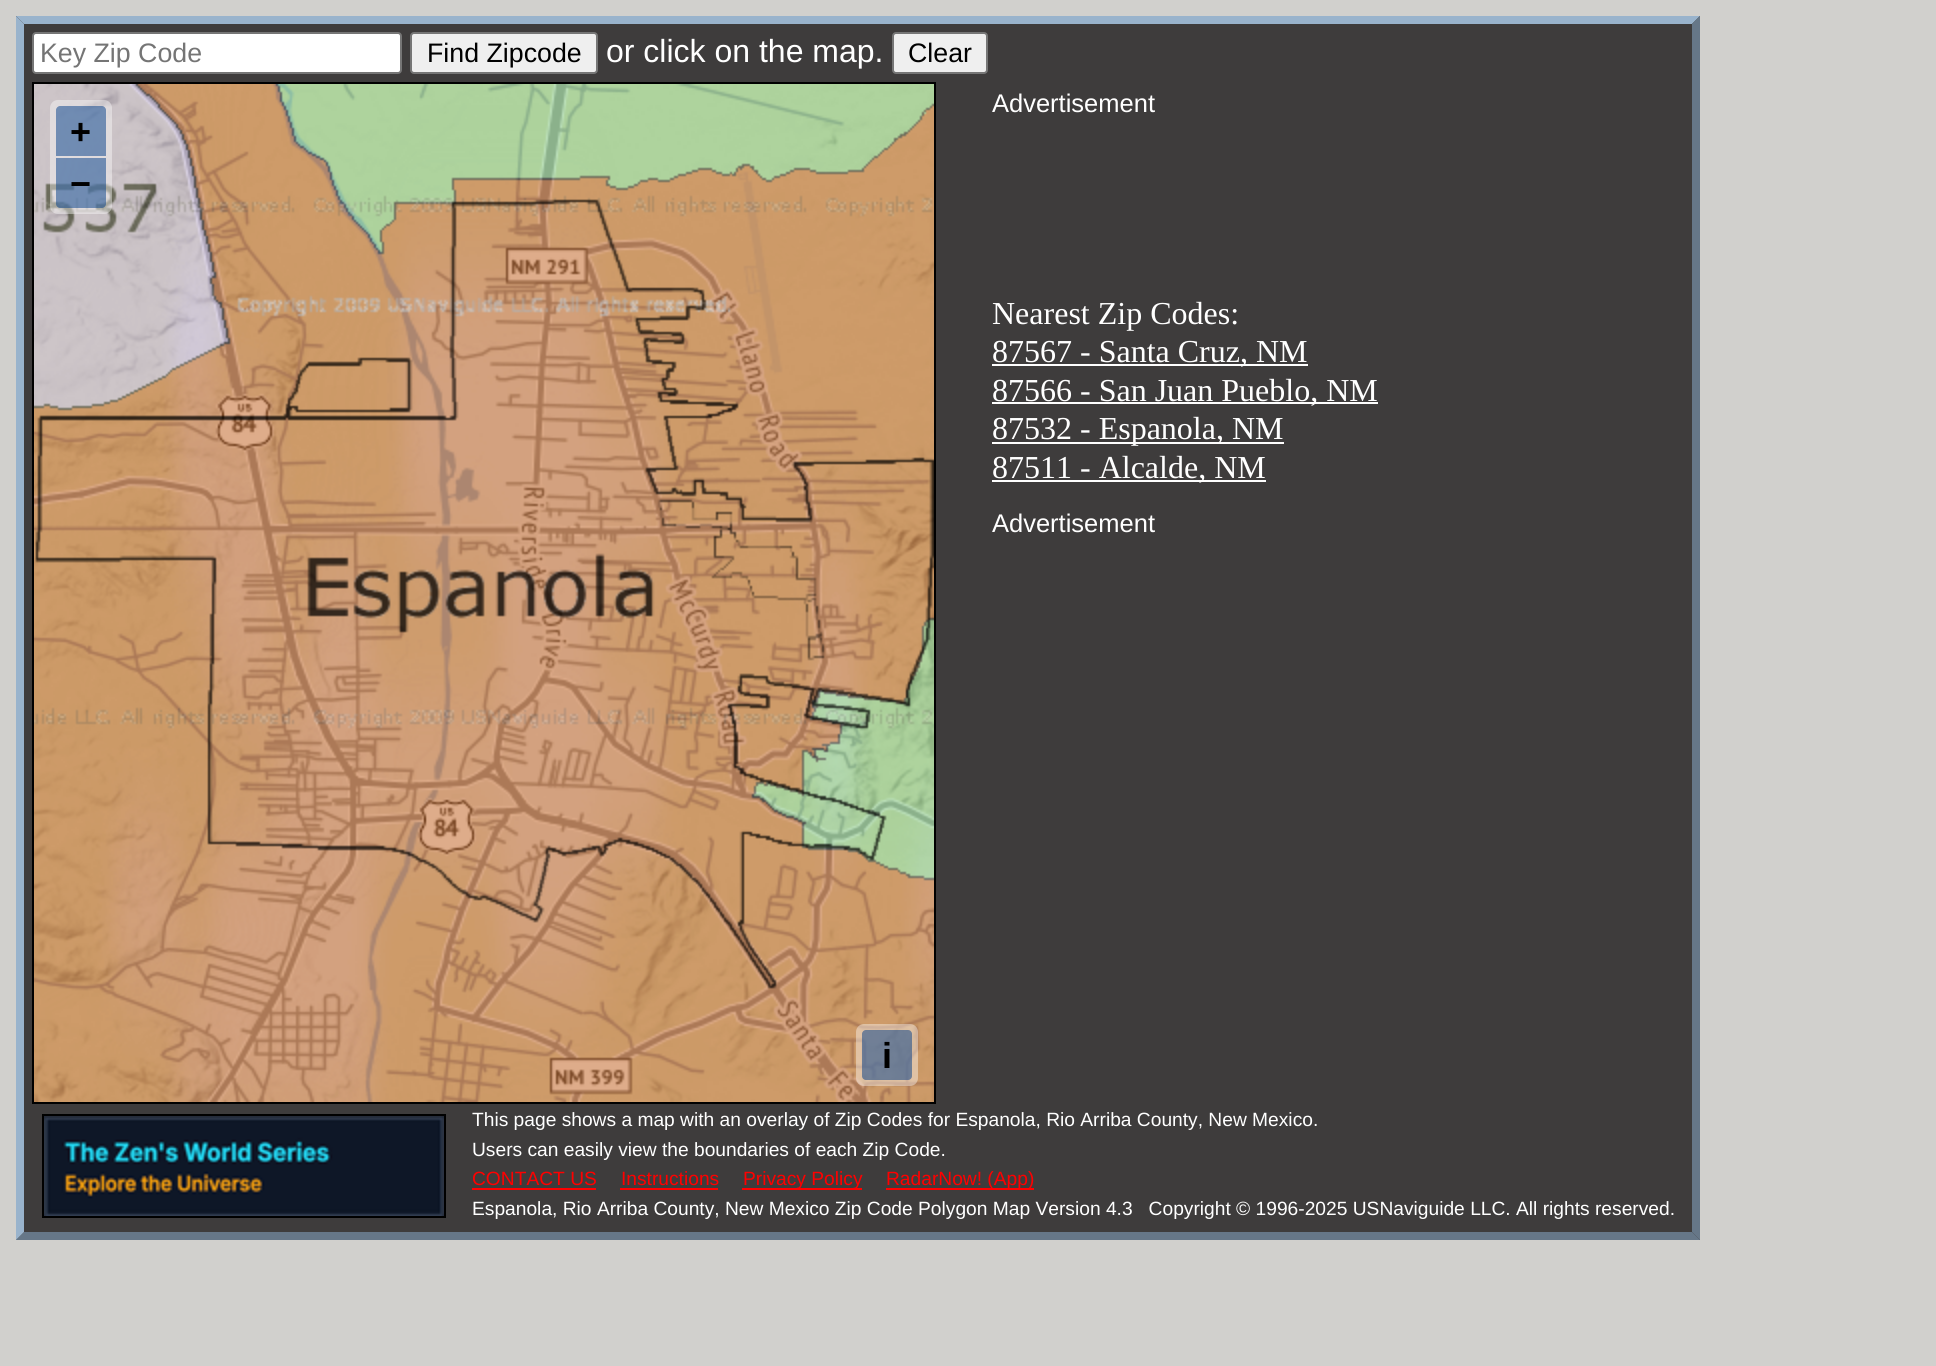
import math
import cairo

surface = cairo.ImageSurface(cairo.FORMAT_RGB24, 1936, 1366)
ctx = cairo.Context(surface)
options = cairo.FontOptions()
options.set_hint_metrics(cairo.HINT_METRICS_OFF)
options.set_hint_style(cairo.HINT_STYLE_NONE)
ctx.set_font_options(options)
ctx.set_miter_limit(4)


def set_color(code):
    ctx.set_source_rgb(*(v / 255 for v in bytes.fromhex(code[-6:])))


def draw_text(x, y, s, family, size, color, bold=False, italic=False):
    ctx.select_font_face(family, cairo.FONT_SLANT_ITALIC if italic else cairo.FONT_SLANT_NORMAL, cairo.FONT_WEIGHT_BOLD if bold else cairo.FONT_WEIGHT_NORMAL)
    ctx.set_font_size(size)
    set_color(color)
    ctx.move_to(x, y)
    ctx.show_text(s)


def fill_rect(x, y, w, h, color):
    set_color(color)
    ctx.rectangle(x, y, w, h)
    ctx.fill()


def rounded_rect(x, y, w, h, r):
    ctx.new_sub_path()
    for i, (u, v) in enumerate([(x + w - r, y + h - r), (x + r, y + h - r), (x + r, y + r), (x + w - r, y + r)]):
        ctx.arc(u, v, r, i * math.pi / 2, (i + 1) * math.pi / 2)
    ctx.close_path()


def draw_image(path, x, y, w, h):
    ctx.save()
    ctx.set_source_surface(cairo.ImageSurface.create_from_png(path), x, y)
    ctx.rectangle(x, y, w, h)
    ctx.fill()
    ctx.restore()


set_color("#d1d0cd")
ctx.paint()
fill_rect(16, 16, 1684, 1224, "#3e3c3c")
set_color("#99b3cc")
ctx.new_path()
ctx.move_to(16, 16)
ctx.line_to(1700, 16)
ctx.line_to(1692, 24)
ctx.line_to(24, 24)
ctx.close_path()
ctx.fill()
set_color("#667788")
ctx.new_path()
ctx.move_to(1700, 16)
ctx.line_to(1700, 1240)
ctx.line_to(1692, 1232)
ctx.line_to(1692, 24)
ctx.close_path()
ctx.fill()
ctx.new_path()
ctx.move_to(1700, 1240)
ctx.line_to(16, 1240)
ctx.line_to(24, 1232)
ctx.line_to(1692, 1232)
ctx.close_path()
ctx.fill()
set_color("#99b3cc")
ctx.new_path()
ctx.move_to(16, 1240)
ctx.line_to(16, 16)
ctx.line_to(24, 24)
ctx.line_to(24, 1232)
ctx.close_path()
ctx.fill()
set_color("#ffffff")
rounded_rect(33, 33, 368, 40, 3)
ctx.fill_preserve()
set_color("#767676")
ctx.stroke()
draw_text(40, 62, "Key Zip Code", "Liberation Sans", 26.75, "#757575")
set_color("#efefef")
rounded_rect(411, 33, 186, 40, 3)
ctx.fill_preserve()
set_color("#767676")
ctx.stroke()
draw_text(427, 62, "Find Zipcode", "Liberation Sans", 26.75, "#000000")
draw_text(606, 62, "or click on the map.", "Liberation Sans", 32, "#ffffff")
set_color("#efefef")
rounded_rect(893, 33, 94, 40, 3)
ctx.fill_preserve()
set_color("#767676")
ctx.stroke()
draw_text(908, 62, "Clear", "Liberation Sans", 26.75, "#000000")
ctx.rectangle(33, 83, 902, 1020)
ctx.stroke()
draw_image("assets/img1.png", 34, 84, 900, 1018)
ctx.set_source_rgba(1, 1, 1, 0.4)
rounded_rect(50, 100, 62, 114, 8)
ctx.fill()
ctx.set_source_rgba(0, 0.235, 0.533, 0.5)
ctx.new_path()
ctx.move_to(60, 106)
ctx.line_to(102, 106)
ctx.curve_to(104, 106, 106, 108, 106, 110)
ctx.line_to(106, 156)
ctx.line_to(56, 156)
ctx.line_to(56, 110)
ctx.curve_to(56, 108, 58, 106, 60, 106)
ctx.close_path()
ctx.fill()
draw_text(70, 144, "+", "Liberation Sans", 36, "#000000", bold=True)
ctx.set_source_rgba(0, 0.235, 0.533, 0.5)
ctx.new_path()
ctx.move_to(56, 158)
ctx.line_to(106, 158)
ctx.line_to(106, 204)
ctx.curve_to(106, 206, 104, 208, 102, 208)
ctx.line_to(60, 208)
ctx.curve_to(58, 208, 56, 206, 56, 204)
ctx.close_path()
ctx.fill()
draw_text(70, 196, "−", "Liberation Sans", 36, "#000000", bold=True)
ctx.set_source_rgba(1, 1, 1, 0.4)
rounded_rect(856, 1024, 62, 62, 8)
ctx.fill()
ctx.set_source_rgba(0, 0.235, 0.533, 0.5)
rounded_rect(862, 1030, 50, 50, 4)
ctx.fill()
draw_text(882, 1068, "i", "Liberation Sans", 36, "#000000", bold=True)
draw_text(992, 112, "Advertisement", "Liberation Sans", 25.5, "#ffffff")
draw_text(992, 324, "Nearest Zip Codes:", "Liberation Serif", 32, "#ffffff")
fill_rect(992, 364, 316, 2, "#ffffff")
draw_text(992, 362, "87567 - Santa Cruz, NM", "Liberation Serif", 32, "#ffffff")
fill_rect(992, 402, 386, 2, "#ffffff")
draw_text(992, 401, "87566 - San Juan Pueblo, NM", "Liberation Serif", 32, "#ffffff")
fill_rect(992, 442, 292, 2, "#ffffff")
draw_text(992, 439, "87532 - Espanola, NM", "Liberation Serif", 32, "#ffffff")
fill_rect(992, 480, 274, 2, "#ffffff")
draw_text(992, 478, "87511 - Alcalde, NM", "Liberation Serif", 32, "#ffffff")
draw_text(992, 532, "Advertisement", "Liberation Sans", 25.5, "#ffffff")
ctx.rectangle(43, 1115, 402, 102)
set_color("#000000")
ctx.stroke()
draw_image("assets/img2.png", 44, 1116, 400, 100)
draw_text(472, 1126, "This page shows a map with an overlay of Zip Codes for Espanola, Rio Arriba County, New Mexico.", "Liberation Sans", 19.2, "#ffffff")
draw_text(472, 1156, "Users can easily view the boundaries of each Zip Code.", "Liberation Sans", 19.2, "#ffffff")
draw_text(472, 1185, "CONTACT US", "Liberation Sans", 19.2, "#ff0000")
fill_rect(472, 1188, 124, 2, "#ff0000")
draw_text(621, 1185, "Instructions", "Liberation Sans", 19.2, "#ff0000")
fill_rect(620, 1188, 98, 2, "#ff0000")
fill_rect(742, 1188, 120, 2, "#ff0000")
draw_text(743, 1185, "Privacy Policy", "Liberation Sans", 19.2, "#ff0000")
fill_rect(886, 1188, 148, 2, "#ff0000")
draw_text(886, 1185, "RadarNow! (App)", "Liberation Sans", 19.2, "#ff0000")
draw_text(472, 1215, "Espanola, Rio Arriba County, New Mexico Zip Code Polygon Map Version 4.3   Copyright © 1996-2025 USNaviguide LLC. All rights reserved.", "Liberation Sans", 19.2, "#ffffff")
surface.write_to_png("output.png")
